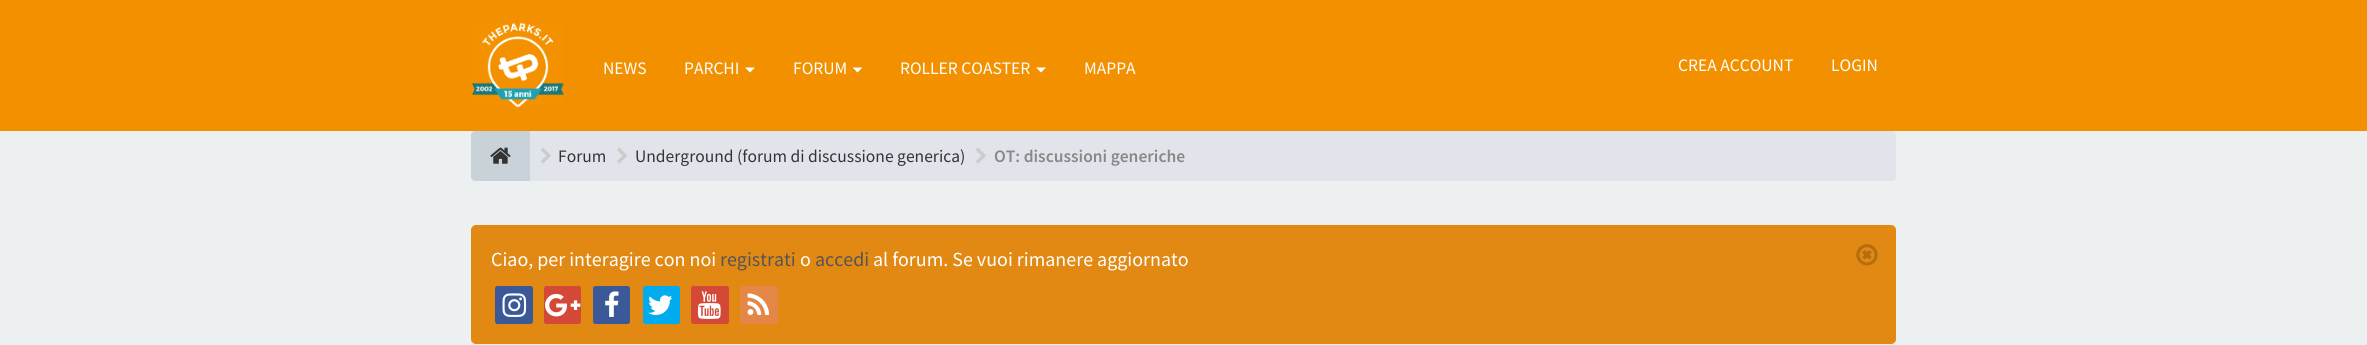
import math
import cairo

surface = cairo.ImageSurface(cairo.FORMAT_RGB24, 2367, 345)
ctx = cairo.Context(surface)
options = cairo.FontOptions()
options.set_hint_metrics(cairo.HINT_METRICS_OFF)
options.set_hint_style(cairo.HINT_STYLE_NONE)
ctx.set_font_options(options)
ctx.set_miter_limit(4)


def set_color(code):
    ctx.set_source_rgb(*(v / 255 for v in bytes.fromhex(code[-6:])))


def draw_text(x, y, s, family, size, color, bold=False, italic=False):
    ctx.select_font_face(family, cairo.FONT_SLANT_ITALIC if italic else cairo.FONT_SLANT_NORMAL, cairo.FONT_WEIGHT_BOLD if bold else cairo.FONT_WEIGHT_NORMAL)
    ctx.set_font_size(size)
    set_color(color)
    ctx.move_to(x, y)
    ctx.show_text(s)


def fill_rect(x, y, w, h, color):
    set_color(color)
    ctx.rectangle(x, y, w, h)
    ctx.fill()


def rounded_rect(x, y, w, h, r):
    ctx.new_sub_path()
    for i, (u, v) in enumerate([(x + w - r, y + h - r), (x + r, y + h - r), (x + r, y + r), (x + w - r, y + r)]):
        ctx.arc(u, v, r, i * math.pi / 2, (i + 1) * math.pi / 2)
    ctx.close_path()


def draw_image(path, x, y, w, h):
    ctx.save()
    ctx.set_source_surface(cairo.ImageSurface.create_from_png(path), x, y)
    ctx.rectangle(x, y, w, h)
    ctx.fill()
    ctx.restore()


set_color("#ecf0f1")
ctx.paint()
fill_rect(0, 0, 2367, 131, "#f29000")
draw_image("assets/img1.png", 472, 22, 92, 86)
draw_text(603, 74, "NEWS", "Source Sans Pro", 17.5, "#ffffff")
draw_text(684, 74, "PARCHI", "Source Sans Pro", 17.5, "#ffffff")
ctx.new_path()
ctx.move_to(745, 67.5)
ctx.line_to(755, 67.5)
ctx.line_to(750, 72.5)
ctx.close_path()
ctx.fill()
draw_text(793, 74, "FORUM", "Source Sans Pro", 17.5, "#ffffff")
ctx.new_path()
ctx.move_to(852.5, 67.5)
ctx.line_to(862.5, 67.5)
ctx.line_to(857.5, 72.5)
ctx.close_path()
ctx.fill()
draw_text(900, 74, "ROLLER COASTER", "Source Sans Pro", 17.5, "#ffffff")
ctx.new_path()
ctx.move_to(1036, 67.5)
ctx.line_to(1046, 67.5)
ctx.line_to(1041, 72.5)
ctx.close_path()
ctx.fill()
draw_text(1084, 74, "MAPPA", "Source Sans Pro", 17.5, "#ffffff")
draw_text(1678, 71, "CREA ACCOUNT", "Source Sans Pro", 17.5, "#ffffff")
draw_text(1831, 71, "LOGIN", "Source Sans Pro", 17.5, "#ffffff")
set_color("#e1e5eb")
rounded_rect(471, 131, 1425, 50, 5)
ctx.fill()
set_color("#c8d2d8")
ctx.new_path()
ctx.move_to(476, 131)
ctx.line_to(530, 131)
ctx.line_to(530, 181)
ctx.line_to(476, 181)
ctx.curve_to(473, 181, 471, 179, 471, 176)
ctx.line_to(471, 136)
ctx.curve_to(471, 133, 473, 131, 476, 131)
ctx.close_path()
ctx.fill()
draw_image("assets/img2.png", 490, 147, 21, 17)
draw_image("assets/img3.png", 541, 148, 10, 16)
draw_text(558, 162, "Forum", "Source Sans Pro", 17.5, "#333333")
draw_image("assets/img4.png", 617, 147, 11, 17)
draw_text(635, 162, "Underground (forum di discussione generica)", "Source Sans Pro", 17.5, "#333333")
draw_image("assets/img3.png", 976, 148, 10, 16)
draw_text(994, 162, "OT: discussioni generiche", "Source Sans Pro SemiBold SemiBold", 17.5, "#888888")
set_color("#e28913")
rounded_rect(471.5, 225.5, 1424, 118, 4.5)
ctx.fill_preserve()
ctx.set_line_width(1)
ctx.stroke()
draw_text(491, 266, "Ciao, per interagire con noi", "Source Sans Pro", 20, "#ffffff")
draw_text(720, 266, "registrati", "Source Sans Pro", 20, "#555555")
draw_text(800, 266, "o", "Source Sans Pro", 20, "#ffffff")
draw_text(815, 266, "accedi", "Source Sans Pro", 20, "#555555")
draw_text(873, 266, "al forum. Se vuoi rimanere aggiornato", "Source Sans Pro", 20, "#ffffff")
draw_image("assets/img5.png", 1856, 244, 22, 22)
set_color("#3b5998")
rounded_rect(495, 286, 38, 38, 2.5)
ctx.fill()
draw_image("assets/img6.png", 502, 293, 25, 24)
set_color("#d34836")
rounded_rect(544, 286, 37, 38, 2.5)
ctx.fill()
draw_image("assets/img7.png", 545, 293, 36, 24)
set_color("#3b5998")
rounded_rect(593, 286, 37, 38, 2.5)
ctx.fill()
draw_image("assets/img8.png", 605, 291, 14, 26)
set_color("#00aced")
rounded_rect(643, 286, 37, 38, 2.5)
ctx.fill()
draw_image("assets/img9.png", 648, 295, 25, 20)
set_color("#d34836")
rounded_rect(691, 286, 38, 38, 2.5)
ctx.fill()
draw_image("assets/img10.png", 697, 291, 24, 28)
set_color("#e48645")
rounded_rect(740, 286, 38, 38, 2.5)
ctx.fill()
draw_image("assets/img11.png", 747, 293, 23, 22)
surface.write_to_png("output.png")
